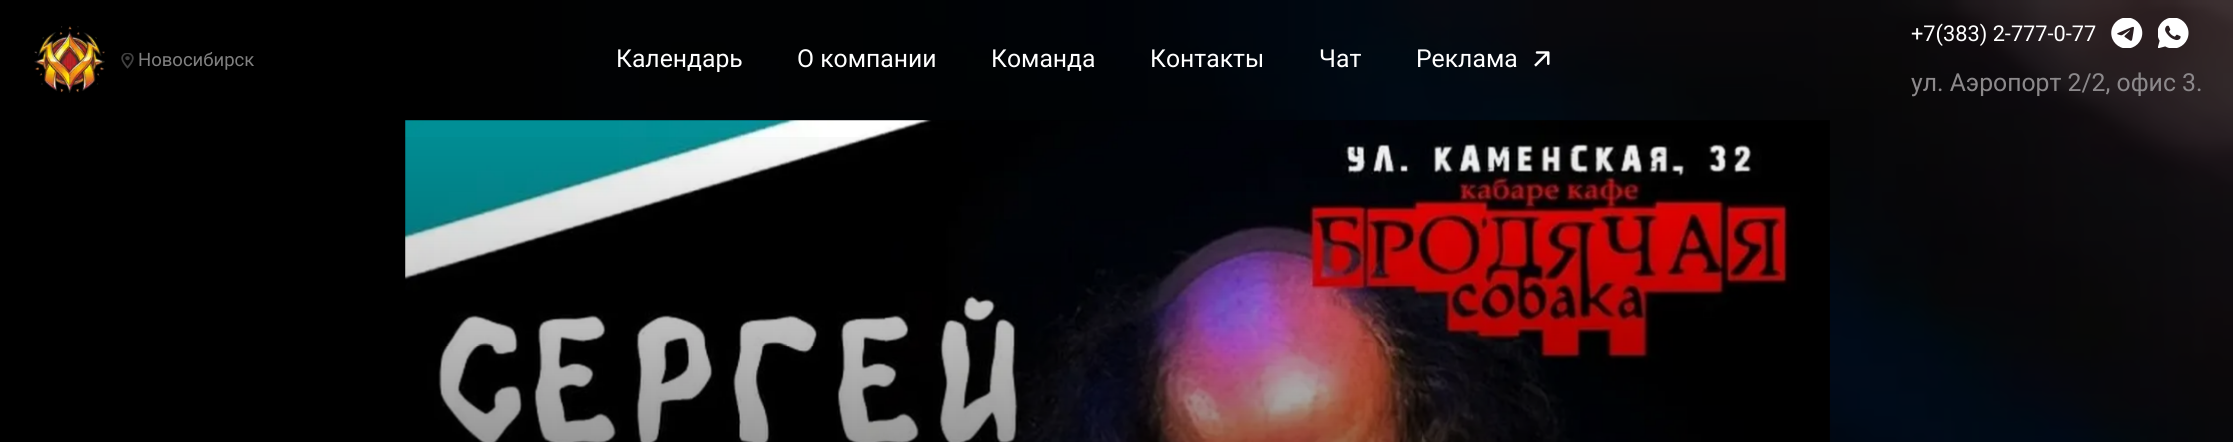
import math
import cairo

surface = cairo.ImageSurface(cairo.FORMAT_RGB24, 2233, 442)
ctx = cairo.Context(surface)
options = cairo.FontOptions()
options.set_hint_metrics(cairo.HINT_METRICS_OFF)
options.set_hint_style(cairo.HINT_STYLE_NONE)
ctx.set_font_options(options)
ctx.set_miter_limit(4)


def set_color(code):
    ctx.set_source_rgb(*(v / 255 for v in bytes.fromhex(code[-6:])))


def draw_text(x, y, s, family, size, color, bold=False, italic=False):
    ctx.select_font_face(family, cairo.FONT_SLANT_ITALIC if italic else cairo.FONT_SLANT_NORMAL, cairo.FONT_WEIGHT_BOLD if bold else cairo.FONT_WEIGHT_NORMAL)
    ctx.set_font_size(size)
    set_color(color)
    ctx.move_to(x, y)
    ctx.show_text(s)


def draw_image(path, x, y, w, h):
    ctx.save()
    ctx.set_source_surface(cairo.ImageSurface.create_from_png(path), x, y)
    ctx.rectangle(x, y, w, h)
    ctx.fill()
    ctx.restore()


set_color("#ffffff")
ctx.paint()
draw_image("assets/img1.png", 0, 0, 2233, 442)
draw_image("assets/img2.png", 34, 26, 71, 67)
draw_image("assets/img3.png", 121, 53, 13, 16)
draw_text(138, 66, "Новосибирск", "Roboto", 18.5, "#808080")
draw_text(616, 67, "Календарь", "Roboto", 24.75, "#ffffff")
draw_text(797, 67, "О компании", "Roboto", 24.75, "#ffffff")
draw_text(991, 67, "Команда", "Roboto", 24.75, "#ffffff")
draw_text(1150, 67, "Контакты", "Roboto", 24.75, "#ffffff")
draw_text(1319, 67, "Чат", "Roboto", 24.75, "#ffffff")
draw_text(1416, 67, "Реклама", "Roboto", 24.75, "#ffffff")
draw_image("assets/img4.png", 1534, 51, 16, 16)
draw_text(1911, 41, "+7(383) 2-777-0-77", "Roboto", 21.75, "#ffffff")
draw_image("assets/img5.png", 2111, 18, 32, 30)
draw_image("assets/img6.png", 2158, 18, 31, 30)
draw_text(1911, 91, "ул. Аэропорт 2/2, офис 3.", "Roboto", 24.75, "#8c898b")
draw_image("assets/img7.png", 405, 120, 1425, 322)
gradient = cairo.LinearGradient(1118, 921, 1118, 120)
gradient.add_color_stop_rgba(0, 0, 0, 0, 1)
gradient.add_color_stop_rgba(1, 0, 0, 0, 0)
ctx.set_source(gradient)
ctx.rectangle(405, 137, 1383, 305)
ctx.fill()
surface.write_to_png("output.png")
